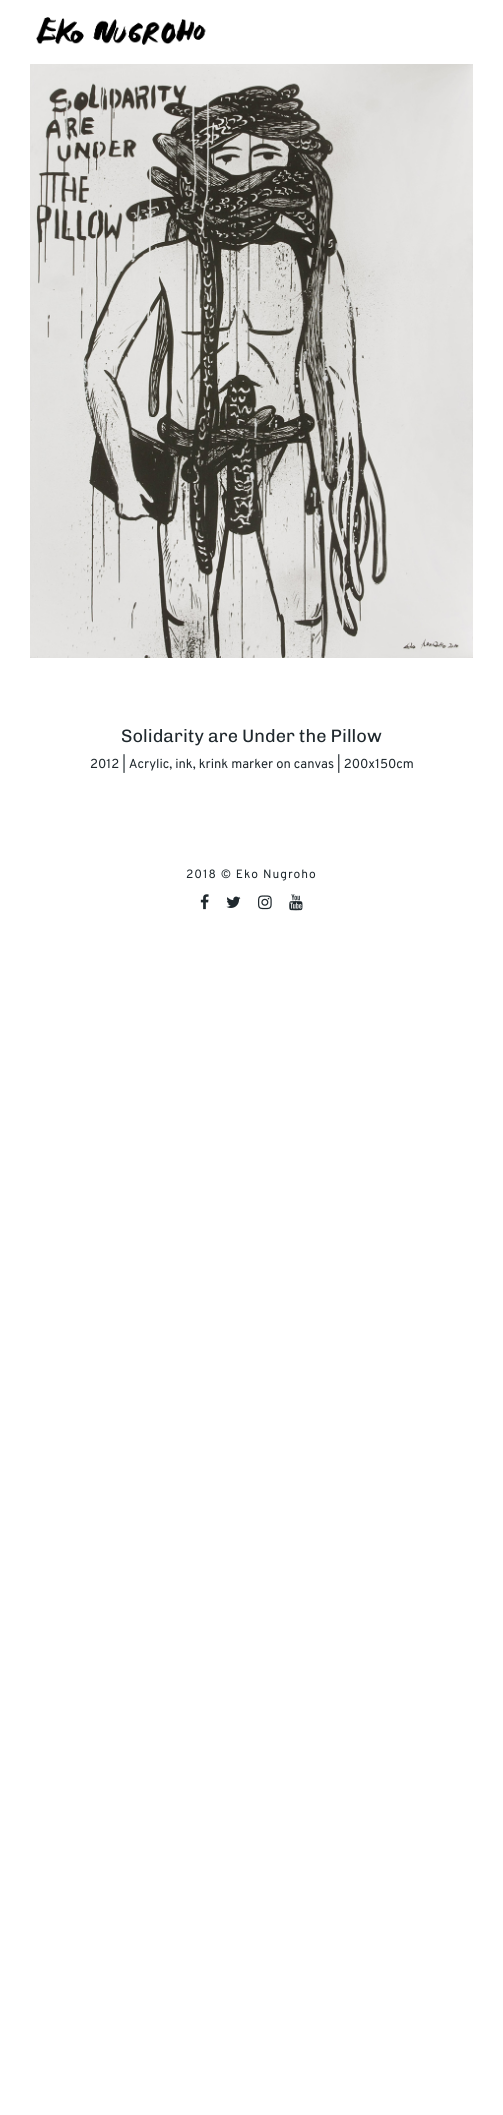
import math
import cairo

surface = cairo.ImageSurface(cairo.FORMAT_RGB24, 503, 2115)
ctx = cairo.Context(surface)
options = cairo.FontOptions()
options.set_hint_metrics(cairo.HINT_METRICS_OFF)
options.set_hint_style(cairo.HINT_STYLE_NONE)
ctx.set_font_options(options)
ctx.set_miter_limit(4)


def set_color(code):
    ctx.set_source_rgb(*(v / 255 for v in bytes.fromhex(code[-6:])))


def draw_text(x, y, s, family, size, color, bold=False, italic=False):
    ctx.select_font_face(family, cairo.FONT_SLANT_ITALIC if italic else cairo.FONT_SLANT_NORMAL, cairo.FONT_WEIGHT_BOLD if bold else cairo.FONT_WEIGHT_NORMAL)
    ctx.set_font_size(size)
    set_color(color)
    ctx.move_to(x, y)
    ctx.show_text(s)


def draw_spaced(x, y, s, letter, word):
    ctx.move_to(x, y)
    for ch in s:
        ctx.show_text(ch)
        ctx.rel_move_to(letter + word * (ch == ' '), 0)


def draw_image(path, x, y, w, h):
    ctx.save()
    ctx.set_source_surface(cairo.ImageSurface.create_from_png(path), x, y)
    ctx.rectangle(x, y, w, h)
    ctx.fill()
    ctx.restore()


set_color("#ffffff")
ctx.paint()
draw_image("assets/img1.png", 36, 17, 170, 28)
draw_image("assets/img2.png", 30, 64, 443, 594)
draw_text(121, 742, "Solidarity are Under the Pillow", "Chivo Medium", 18, "#1f282d")
draw_text(90, 768, "2012 | Acrylic, ink, krink marker on canvas | 200x150cm", "Overpass", 13, "#1f282d")
ctx.set_font_size(12)
draw_spaced(186, 878, "2018 © Eko Nugroho", 1, 0)
draw_image("assets/img3.png", 200, 894, 9, 16)
draw_image("assets/img4.png", 226, 896, 15, 12)
draw_image("assets/img5.png", 258, 895, 14, 15)
draw_image("assets/img6.png", 289, 894, 14, 17)
surface.write_to_png("output.png")
